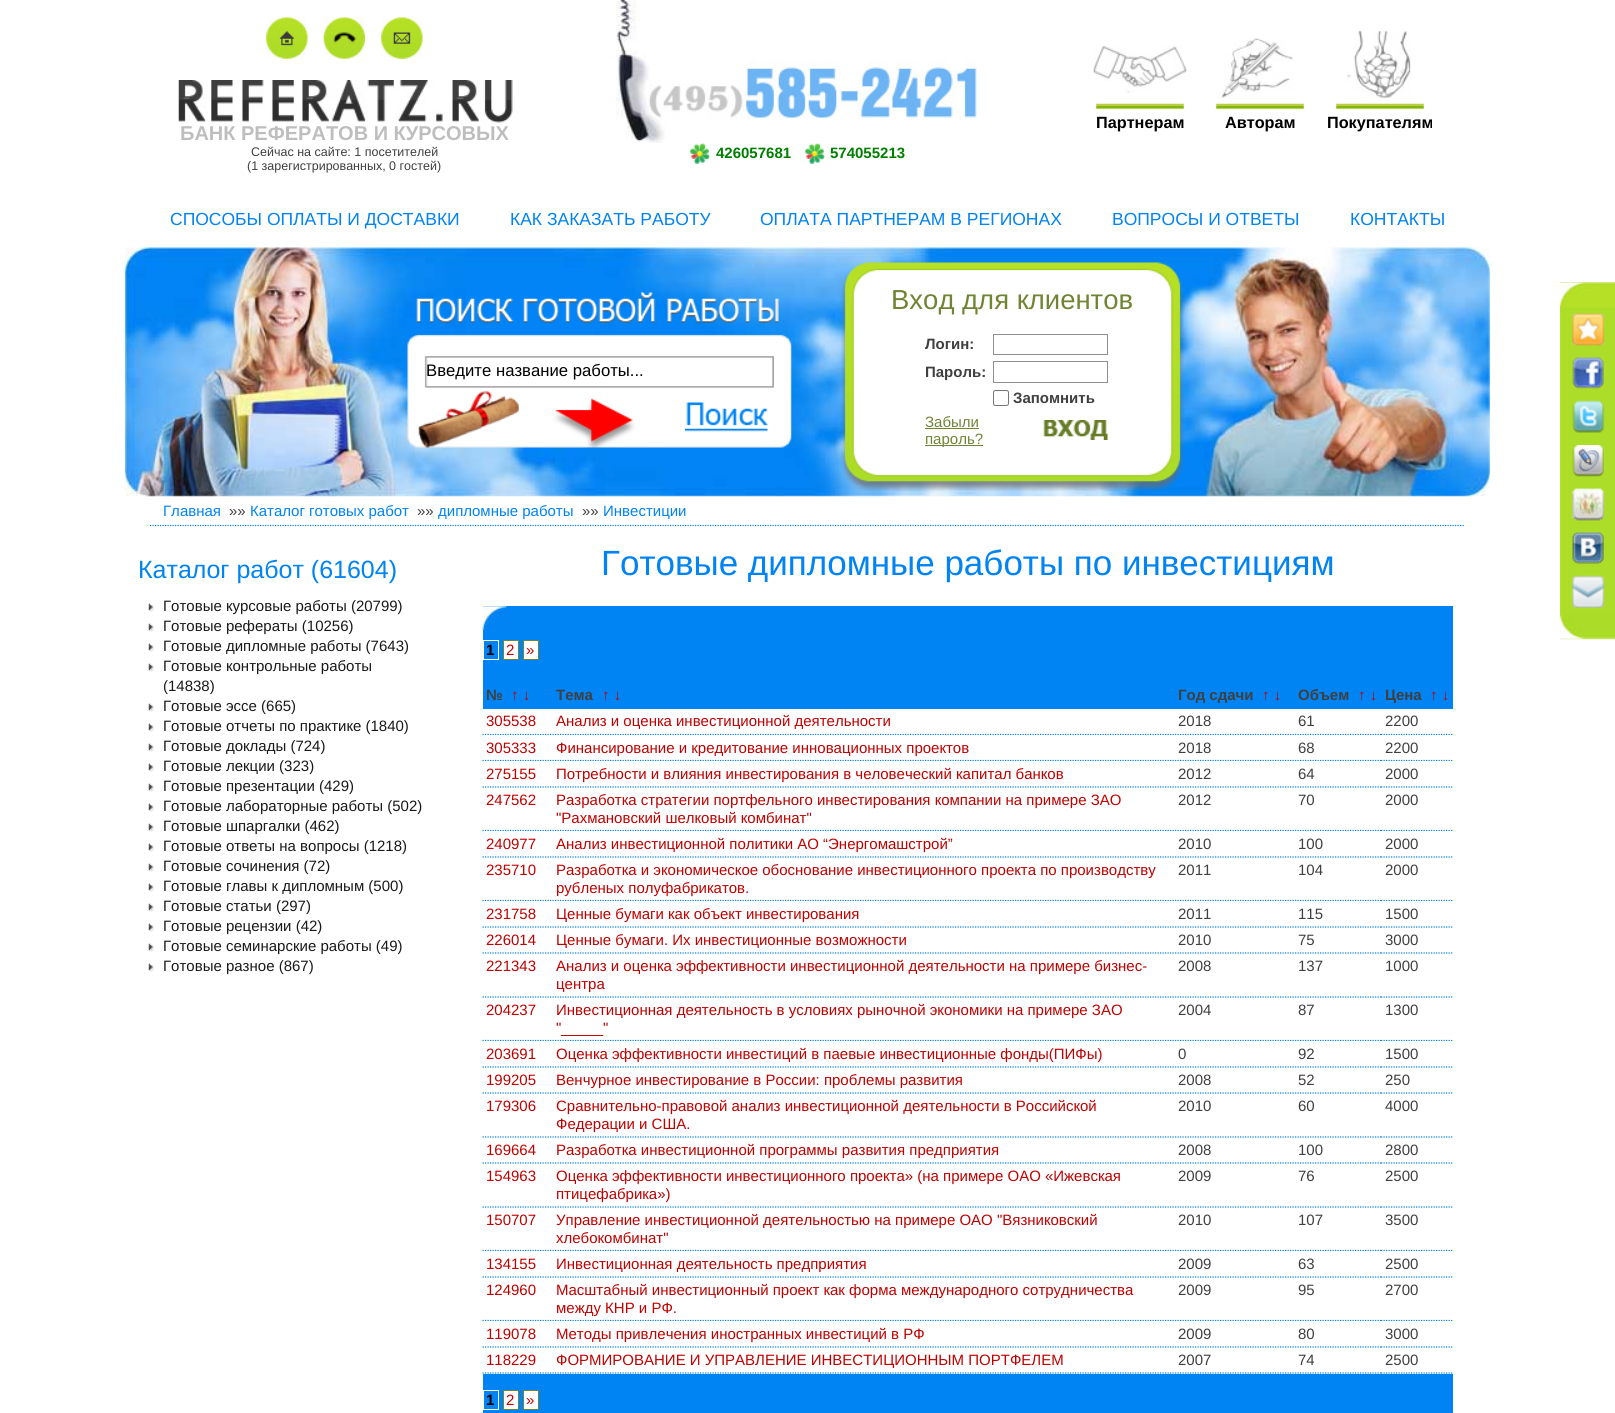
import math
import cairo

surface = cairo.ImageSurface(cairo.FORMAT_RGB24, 1615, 1413)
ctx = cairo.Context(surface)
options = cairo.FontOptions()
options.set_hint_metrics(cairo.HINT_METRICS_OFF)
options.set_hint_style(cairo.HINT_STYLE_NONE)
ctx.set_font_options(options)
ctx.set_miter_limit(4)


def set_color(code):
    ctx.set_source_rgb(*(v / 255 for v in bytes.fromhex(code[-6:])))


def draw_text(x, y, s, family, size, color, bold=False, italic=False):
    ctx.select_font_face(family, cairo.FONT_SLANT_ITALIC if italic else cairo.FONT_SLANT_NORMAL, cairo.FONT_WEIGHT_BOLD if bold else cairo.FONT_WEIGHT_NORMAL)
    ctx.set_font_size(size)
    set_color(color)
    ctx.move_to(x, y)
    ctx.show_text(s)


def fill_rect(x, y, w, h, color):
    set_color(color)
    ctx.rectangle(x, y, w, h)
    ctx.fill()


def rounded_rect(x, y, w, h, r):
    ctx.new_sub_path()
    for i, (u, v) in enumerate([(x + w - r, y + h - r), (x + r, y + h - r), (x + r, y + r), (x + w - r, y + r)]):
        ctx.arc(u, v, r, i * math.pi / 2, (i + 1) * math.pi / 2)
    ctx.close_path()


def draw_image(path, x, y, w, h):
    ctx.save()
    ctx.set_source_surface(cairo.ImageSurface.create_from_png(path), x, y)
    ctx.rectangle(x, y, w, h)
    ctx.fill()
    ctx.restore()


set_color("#ffffff")
ctx.paint()
draw_image("assets/img1.png", 1093, 45, 94, 48)
draw_image("assets/img2.png", 1096, 103, 88, 6)
draw_text(1096, 128, "Партнерам", "Liberation Sans", 16.25, "#000000", bold=True)
draw_image("assets/img3.png", 1215, 38, 78, 60)
draw_image("assets/img2.png", 1216, 103, 88, 6)
draw_text(1225, 128, "Авторам", "Liberation Sans", 16.25, "#000000", bold=True)
draw_image("assets/img4.png", 1347, 31, 64, 67)
draw_image("assets/img2.png", 1336, 103, 88, 6)
draw_text(1327, 128, "Покупателям", "Liberation Sans", 16.25, "#000000", bold=True)
draw_image("assets/img5.png", 266, 17, 42, 42)
draw_image("assets/img6.png", 323, 17, 42, 42)
draw_image("assets/img7.png", 381, 17, 42, 42)
draw_image("assets/img8.png", 178, 80, 335, 43)
draw_text(180, 140, "БАНК РЕФЕРАТОВ И КУРСОВЫХ", "Liberation Sans", 20, "#bebebe", bold=True)
draw_text(251, 156, "Сейчас на сайте: 1 посетителей", "Liberation Sans", 12.5, "#3f3f3f")
draw_text(247, 170, "(1 зарегистрированных, 0 гостей)", "Liberation Sans", 12.5, "#3f3f3f")
draw_image("assets/img9.png", 616, 0, 361, 143)
draw_image("assets/img10.png", 689, 143, 22, 21)
draw_text(716, 158, "426057681", "Liberation Sans", 15, "#008000", bold=True)
draw_image("assets/img10.png", 804, 143, 22, 21)
draw_text(830, 158, "574055213", "Liberation Sans", 15, "#008000", bold=True)
draw_text(170, 225, "СПОСОБЫ ОПЛАТЫ И ДОСТАВКИ", "Liberation Sans", 17.5, "#0083f3")
draw_text(510, 225, "КАК ЗАКАЗАТЬ РАБОТУ", "Liberation Sans", 17.5, "#0083f3")
draw_text(760, 225, "ОПЛАТА ПАРТНЕРАМ В РЕГИОНАХ", "Liberation Sans", 17.5, "#0083f3")
draw_text(1112, 225, "ВОПРОСЫ И ОТВЕТЫ", "Liberation Sans", 17.5, "#0083f3")
draw_text(1350, 225, "КОНТАКТЫ", "Liberation Sans", 17.5, "#0083f3")
draw_image("assets/img11.png", 125, 247, 1365, 250)
draw_image("assets/img12.png", 407, 292, 385, 156)
draw_text(426, 376, "Введите название работы...", "Liberation Sans", 16.7, "#000000")
draw_image("assets/img13.png", 685, 402, 83, 30)
draw_image("assets/img14.png", 841, 262, 343, 229)
draw_text(891, 309, "Вход для клиентов", "Liberation Sans", 27.5, "#708533")
draw_text(925, 349, "Логин:", "Liberation Sans", 15, "#3f3f3f", bold=True)
ctx.rectangle(993.5, 334.5, 114, 20)
set_color("#8e8e8e")
ctx.set_line_width(1)
ctx.stroke()
draw_text(925, 377, "Пароль:", "Liberation Sans", 15, "#3f3f3f", bold=True)
ctx.rectangle(993.5, 361.5, 114, 21)
set_color("#8e8e8e")
ctx.stroke()
rounded_rect(993.5, 390.5, 15, 15, 2)
set_color("#767676")
ctx.stroke()
draw_text(1013, 403, "Запомнить", "Liberation Sans", 15, "#3f3f3f", bold=True)
draw_text(925, 427, "Забыли", "Liberation Sans", 15, "#708533")
fill_rect(925, 428, 54, 1, "#708533")
fill_rect(925, 445, 58, 1, "#708533")
draw_text(925, 444, "пароль?", "Liberation Sans", 15, "#708533")
draw_image("assets/img15.png", 1043, 420, 65, 20)
ctx.new_path()
ctx.move_to(150, 525.5)
ctx.line_to(1465, 525.5)
set_color("#0083f3")
ctx.set_line_width(1.2)
ctx.set_dash([1.25, 1.25])
ctx.stroke()
draw_text(163, 516, "Главная", "Liberation Sans", 15, "#0083f3")
draw_text(229, 516, "»»", "Liberation Sans", 15, "#3f3f3f")
draw_text(250, 516, "Каталог готовых работ", "Liberation Sans", 15, "#0083f3")
draw_text(417, 516, "»»", "Liberation Sans", 15, "#3f3f3f")
draw_text(438, 516, "дипломные работы", "Liberation Sans", 15, "#0083f3")
draw_text(582, 516, "»»", "Liberation Sans", 15, "#3f3f3f")
draw_text(603, 516, "Инвестиции", "Liberation Sans", 15, "#0083f3")
draw_text(138, 578, "Каталог работ (61604)", "Liberation Sans", 25, "#0083f3")
draw_image("assets/img16.png", 148, 603, 6, 9)
draw_text(163, 611, "Готовые курсовые работы (20799)", "Liberation Sans", 15, "#191919")
draw_image("assets/img16.png", 148, 623, 6, 9)
draw_text(163, 631, "Готовые рефераты (10256)", "Liberation Sans", 15, "#191919")
draw_image("assets/img16.png", 148, 643, 6, 9)
draw_text(163, 651, "Готовые дипломные работы (7643)", "Liberation Sans", 15, "#191919")
draw_image("assets/img16.png", 148, 663, 6, 9)
draw_text(163, 671, "Готовые контрольные работы", "Liberation Sans", 15, "#191919")
draw_text(163, 691, "(14838)", "Liberation Sans", 15, "#191919")
draw_image("assets/img16.png", 148, 703, 6, 9)
draw_text(163, 711, "Готовые эссе (665)", "Liberation Sans", 15, "#191919")
draw_image("assets/img16.png", 148, 723, 6, 9)
draw_text(163, 731, "Готовые отчеты по практике (1840)", "Liberation Sans", 15, "#191919")
draw_image("assets/img16.png", 148, 743, 6, 9)
draw_text(163, 751, "Готовые доклады (724)", "Liberation Sans", 15, "#191919")
draw_image("assets/img16.png", 148, 763, 6, 9)
draw_text(163, 771, "Готовые лекции (323)", "Liberation Sans", 15, "#191919")
draw_image("assets/img16.png", 148, 783, 6, 9)
draw_text(163, 791, "Готовые презентации (429)", "Liberation Sans", 15, "#191919")
draw_image("assets/img16.png", 148, 803, 6, 9)
draw_text(163, 811, "Готовые лабораторные работы (502)", "Liberation Sans", 15, "#191919")
draw_image("assets/img16.png", 148, 823, 6, 9)
draw_text(163, 831, "Готовые шпаргалки (462)", "Liberation Sans", 15, "#191919")
draw_image("assets/img16.png", 148, 843, 6, 9)
draw_text(163, 851, "Готовые ответы на вопросы (1218)", "Liberation Sans", 15, "#191919")
draw_image("assets/img16.png", 148, 863, 6, 9)
draw_text(163, 871, "Готовые сочинения (72)", "Liberation Sans", 15, "#191919")
draw_image("assets/img16.png", 148, 883, 6, 9)
draw_text(163, 891, "Готовые главы к дипломным (500)", "Liberation Sans", 15, "#191919")
draw_image("assets/img16.png", 148, 903, 6, 9)
draw_text(163, 911, "Готовые статьи (297)", "Liberation Sans", 15, "#191919")
draw_image("assets/img16.png", 148, 923, 6, 9)
draw_text(163, 931, "Готовые рецензии (42)", "Liberation Sans", 15, "#191919")
draw_image("assets/img16.png", 148, 943, 6, 9)
draw_text(163, 951, "Готовые семинарские работы (49)", "Liberation Sans", 15, "#191919")
draw_image("assets/img16.png", 148, 963, 6, 9)
draw_text(163, 971, "Готовые разное (867)", "Liberation Sans", 15, "#191919")
draw_text(601, 575, "Готовые дипломные работы по инвестициям", "Liberation Sans", 35, "#0083f3")
fill_rect(483, 606, 970, 807, "#0083f3")
draw_image("assets/img17.png", 482, 606, 25, 24)
ctx.rectangle(483.5, 640.5, 15, 19)
set_color("#ffffff")
ctx.set_line_width(1)
ctx.set_dash([])
ctx.stroke()
draw_text(486, 655, "1", "Liberation Sans", 15, "#000000", bold=True)
set_color("#ffffff")
ctx.rectangle(503.5, 640.5, 15, 19)
ctx.fill_preserve()
set_color("#708533")
ctx.stroke()
draw_text(506, 655, "2", "Liberation Sans", 15, "#be0101")
set_color("#ffffff")
ctx.rectangle(523.5, 640.5, 15, 19)
ctx.fill_preserve()
set_color("#708533")
ctx.stroke()
draw_text(526, 655, "»", "Liberation Sans", 15, "#be0101")
draw_text(486, 700, "№", "Liberation Sans", 15, "#3f3f3f", bold=True)
draw_text(511, 700, "↑ ↓", "Liberation Sans", 15, "#be0101", bold=True)
draw_text(556, 700, "Тема", "Liberation Sans", 15, "#3f3f3f", bold=True)
draw_text(602, 700, "↑ ↓", "Liberation Sans", 15, "#be0101", bold=True)
draw_text(1178, 700, "Год сдачи", "Liberation Sans", 15, "#3f3f3f", bold=True)
draw_text(1262, 700, "↑ ↓", "Liberation Sans", 15, "#be0101", bold=True)
draw_text(1298, 700, "Объем", "Liberation Sans", 15, "#3f3f3f", bold=True)
draw_text(1358, 700, "↑ ↓", "Liberation Sans", 15, "#be0101", bold=True)
draw_text(1385, 700, "Цена", "Liberation Sans", 15, "#3f3f3f", bold=True)
draw_text(1430, 700, "↑ ↓", "Liberation Sans", 15, "#be0101", bold=True)
fill_rect(483, 709, 970, 26, "#ffffff")
ctx.new_path()
ctx.move_to(482.5, 734.5)
ctx.line_to(552.5, 734.5)
set_color("#0083f3")
ctx.set_line_width(1.2)
ctx.set_dash([1.25, 1.25])
ctx.stroke()
draw_text(486, 726, "305538", "Liberation Sans", 15, "#be0101")
ctx.new_path()
ctx.move_to(552.5, 734.5)
ctx.line_to(1175, 734.5)
set_color("#0083f3")
ctx.stroke()
draw_text(556, 726, "Анализ и оценка инвестиционной деятельности", "Liberation Sans", 15, "#be0101")
ctx.new_path()
ctx.move_to(1175, 734.5)
ctx.line_to(1295, 734.5)
set_color("#0083f3")
ctx.stroke()
draw_text(1178, 726, "2018", "Liberation Sans", 15, "#3f3f3f")
ctx.new_path()
ctx.move_to(1295, 734.5)
ctx.line_to(1381, 734.5)
set_color("#0083f3")
ctx.stroke()
draw_text(1298, 726, "61", "Liberation Sans", 15, "#3f3f3f")
ctx.new_path()
ctx.move_to(1381, 734.5)
ctx.line_to(1452.5, 734.5)
set_color("#0083f3")
ctx.stroke()
draw_text(1385, 726, "2200", "Liberation Sans", 15, "#3f3f3f")
fill_rect(483, 735, 970, 26, "#ffffff")
ctx.new_path()
ctx.move_to(482.5, 760.5)
ctx.line_to(552.5, 760.5)
set_color("#0083f3")
ctx.stroke()
draw_text(486, 753, "305333", "Liberation Sans", 15, "#be0101")
ctx.new_path()
ctx.move_to(552.5, 760.5)
ctx.line_to(1175, 760.5)
set_color("#0083f3")
ctx.stroke()
draw_text(556, 753, "Финансирование и кредитование инновационных проектов", "Liberation Sans", 15, "#be0101")
ctx.new_path()
ctx.move_to(1175, 760.5)
ctx.line_to(1295, 760.5)
set_color("#0083f3")
ctx.stroke()
draw_text(1178, 753, "2018", "Liberation Sans", 15, "#3f3f3f")
ctx.new_path()
ctx.move_to(1295, 760.5)
ctx.line_to(1381, 760.5)
set_color("#0083f3")
ctx.stroke()
draw_text(1298, 753, "68", "Liberation Sans", 15, "#3f3f3f")
ctx.new_path()
ctx.move_to(1381, 760.5)
ctx.line_to(1452.5, 760.5)
set_color("#0083f3")
ctx.stroke()
draw_text(1385, 753, "2200", "Liberation Sans", 15, "#3f3f3f")
fill_rect(483, 761, 970, 27, "#ffffff")
ctx.new_path()
ctx.move_to(482.5, 787)
ctx.line_to(552.5, 787)
set_color("#0083f3")
ctx.stroke()
draw_text(486, 779, "275155", "Liberation Sans", 15, "#be0101")
ctx.new_path()
ctx.move_to(552.5, 787)
ctx.line_to(1175, 787)
set_color("#0083f3")
ctx.stroke()
draw_text(556, 779, "Потребности и влияния инвестирования в человеческий капитал банков", "Liberation Sans", 15, "#be0101")
ctx.new_path()
ctx.move_to(1175, 787)
ctx.line_to(1295, 787)
set_color("#0083f3")
ctx.stroke()
draw_text(1178, 779, "2012", "Liberation Sans", 15, "#3f3f3f")
ctx.new_path()
ctx.move_to(1295, 787)
ctx.line_to(1381, 787)
set_color("#0083f3")
ctx.stroke()
draw_text(1298, 779, "64", "Liberation Sans", 15, "#3f3f3f")
ctx.new_path()
ctx.move_to(1381, 787)
ctx.line_to(1452.5, 787)
set_color("#0083f3")
ctx.stroke()
draw_text(1385, 779, "2000", "Liberation Sans", 15, "#3f3f3f")
fill_rect(483, 788, 970, 43, "#ffffff")
ctx.new_path()
ctx.move_to(482.5, 830.5)
ctx.line_to(552.5, 830.5)
set_color("#0083f3")
ctx.stroke()
draw_text(486, 805, "247562", "Liberation Sans", 15, "#be0101")
ctx.new_path()
ctx.move_to(552.5, 830.5)
ctx.line_to(1175, 830.5)
set_color("#0083f3")
ctx.stroke()
draw_text(556, 805, "Разработка стратегии портфельного инвестирования компании на примере ЗАО", "Liberation Sans", 15, "#be0101")
draw_text(556, 823, "\"Рахмановский шелковый комбинат\"", "Liberation Sans", 15, "#be0101")
ctx.new_path()
ctx.move_to(1175, 830.5)
ctx.line_to(1295, 830.5)
set_color("#0083f3")
ctx.stroke()
draw_text(1178, 805, "2012", "Liberation Sans", 15, "#3f3f3f")
ctx.new_path()
ctx.move_to(1295, 830.5)
ctx.line_to(1381, 830.5)
set_color("#0083f3")
ctx.stroke()
draw_text(1298, 805, "70", "Liberation Sans", 15, "#3f3f3f")
ctx.new_path()
ctx.move_to(1381, 830.5)
ctx.line_to(1452.5, 830.5)
set_color("#0083f3")
ctx.stroke()
draw_text(1385, 805, "2000", "Liberation Sans", 15, "#3f3f3f")
fill_rect(483, 831, 970, 27, "#ffffff")
ctx.new_path()
ctx.move_to(482.5, 857)
ctx.line_to(552.5, 857)
set_color("#0083f3")
ctx.stroke()
draw_text(486, 849, "240977", "Liberation Sans", 15, "#be0101")
ctx.new_path()
ctx.move_to(552.5, 857)
ctx.line_to(1175, 857)
set_color("#0083f3")
ctx.stroke()
draw_text(556, 849, "Анализ инвестиционной политики АО “Энергомашстрой”", "Liberation Sans", 15, "#be0101")
ctx.new_path()
ctx.move_to(1175, 857)
ctx.line_to(1295, 857)
set_color("#0083f3")
ctx.stroke()
draw_text(1178, 849, "2010", "Liberation Sans", 15, "#3f3f3f")
ctx.new_path()
ctx.move_to(1295, 857)
ctx.line_to(1381, 857)
set_color("#0083f3")
ctx.stroke()
draw_text(1298, 849, "100", "Liberation Sans", 15, "#3f3f3f")
ctx.new_path()
ctx.move_to(1381, 857)
ctx.line_to(1452.5, 857)
set_color("#0083f3")
ctx.stroke()
draw_text(1385, 849, "2000", "Liberation Sans", 15, "#3f3f3f")
fill_rect(483, 858, 970, 43, "#ffffff")
ctx.new_path()
ctx.move_to(482.5, 900.5)
ctx.line_to(552.5, 900.5)
set_color("#0083f3")
ctx.stroke()
draw_text(486, 875, "235710", "Liberation Sans", 15, "#be0101")
ctx.new_path()
ctx.move_to(552.5, 900.5)
ctx.line_to(1175, 900.5)
set_color("#0083f3")
ctx.stroke()
draw_text(556, 875, "Разработка и экономическое обоснование инвестиционного проекта по производству", "Liberation Sans", 15, "#be0101")
draw_text(556, 893, "рубленых полуфабрикатов.", "Liberation Sans", 15, "#be0101")
ctx.new_path()
ctx.move_to(1175, 900.5)
ctx.line_to(1295, 900.5)
set_color("#0083f3")
ctx.stroke()
draw_text(1178, 875, "2011", "Liberation Sans", 15, "#3f3f3f")
ctx.new_path()
ctx.move_to(1295, 900.5)
ctx.line_to(1381, 900.5)
set_color("#0083f3")
ctx.stroke()
draw_text(1298, 875, "104", "Liberation Sans", 15, "#3f3f3f")
ctx.new_path()
ctx.move_to(1381, 900.5)
ctx.line_to(1452.5, 900.5)
set_color("#0083f3")
ctx.stroke()
draw_text(1385, 875, "2000", "Liberation Sans", 15, "#3f3f3f")
fill_rect(483, 901, 970, 27, "#ffffff")
ctx.new_path()
ctx.move_to(482.5, 927)
ctx.line_to(552.5, 927)
set_color("#0083f3")
ctx.stroke()
draw_text(486, 919, "231758", "Liberation Sans", 15, "#be0101")
ctx.new_path()
ctx.move_to(552.5, 927)
ctx.line_to(1175, 927)
set_color("#0083f3")
ctx.stroke()
draw_text(556, 919, "Ценные бумаги как объект инвестирования", "Liberation Sans", 15, "#be0101")
ctx.new_path()
ctx.move_to(1175, 927)
ctx.line_to(1295, 927)
set_color("#0083f3")
ctx.stroke()
draw_text(1178, 919, "2011", "Liberation Sans", 15, "#3f3f3f")
ctx.new_path()
ctx.move_to(1295, 927)
ctx.line_to(1381, 927)
set_color("#0083f3")
ctx.stroke()
draw_text(1298, 919, "115", "Liberation Sans", 15, "#3f3f3f")
ctx.new_path()
ctx.move_to(1381, 927)
ctx.line_to(1452.5, 927)
set_color("#0083f3")
ctx.stroke()
draw_text(1385, 919, "1500", "Liberation Sans", 15, "#3f3f3f")
fill_rect(483, 928, 970, 26, "#ffffff")
ctx.new_path()
ctx.move_to(482.5, 953)
ctx.line_to(552.5, 953)
set_color("#0083f3")
ctx.stroke()
draw_text(486, 945, "226014", "Liberation Sans", 15, "#be0101")
ctx.new_path()
ctx.move_to(552.5, 953)
ctx.line_to(1175, 953)
set_color("#0083f3")
ctx.stroke()
draw_text(556, 945, "Ценные бумаги. Их инвестиционные возможности", "Liberation Sans", 15, "#be0101")
ctx.new_path()
ctx.move_to(1175, 953)
ctx.line_to(1295, 953)
set_color("#0083f3")
ctx.stroke()
draw_text(1178, 945, "2010", "Liberation Sans", 15, "#3f3f3f")
ctx.new_path()
ctx.move_to(1295, 953)
ctx.line_to(1381, 953)
set_color("#0083f3")
ctx.stroke()
draw_text(1298, 945, "75", "Liberation Sans", 15, "#3f3f3f")
ctx.new_path()
ctx.move_to(1381, 953)
ctx.line_to(1452.5, 953)
set_color("#0083f3")
ctx.stroke()
draw_text(1385, 945, "3000", "Liberation Sans", 15, "#3f3f3f")
fill_rect(483, 954, 970, 44, "#ffffff")
ctx.new_path()
ctx.move_to(482.5, 997)
ctx.line_to(552.5, 997)
set_color("#0083f3")
ctx.stroke()
draw_text(486, 971, "221343", "Liberation Sans", 15, "#be0101")
ctx.new_path()
ctx.move_to(552.5, 997)
ctx.line_to(1175, 997)
set_color("#0083f3")
ctx.stroke()
draw_text(556, 971, "Анализ и оценка эффективности инвестиционной деятельности на примере бизнес-", "Liberation Sans", 15, "#be0101")
draw_text(556, 989, "центра", "Liberation Sans", 15, "#be0101")
ctx.new_path()
ctx.move_to(1175, 997)
ctx.line_to(1295, 997)
set_color("#0083f3")
ctx.stroke()
draw_text(1178, 971, "2008", "Liberation Sans", 15, "#3f3f3f")
ctx.new_path()
ctx.move_to(1295, 997)
ctx.line_to(1381, 997)
set_color("#0083f3")
ctx.stroke()
draw_text(1298, 971, "137", "Liberation Sans", 15, "#3f3f3f")
ctx.new_path()
ctx.move_to(1381, 997)
ctx.line_to(1452.5, 997)
set_color("#0083f3")
ctx.stroke()
draw_text(1385, 971, "1000", "Liberation Sans", 15, "#3f3f3f")
fill_rect(483, 998, 970, 43, "#ffffff")
ctx.new_path()
ctx.move_to(482.5, 1040.5)
ctx.line_to(552.5, 1040.5)
set_color("#0083f3")
ctx.stroke()
draw_text(486, 1015, "204237", "Liberation Sans", 15, "#be0101")
ctx.new_path()
ctx.move_to(552.5, 1040.5)
ctx.line_to(1175, 1040.5)
set_color("#0083f3")
ctx.stroke()
draw_text(556, 1015, "Инвестиционная деятельность в условиях рыночной экономики на примере ЗАО", "Liberation Sans", 15, "#be0101")
draw_text(556, 1033, "\"_____\"", "Liberation Sans", 15, "#be0101")
ctx.new_path()
ctx.move_to(1175, 1040.5)
ctx.line_to(1295, 1040.5)
set_color("#0083f3")
ctx.stroke()
draw_text(1178, 1015, "2004", "Liberation Sans", 15, "#3f3f3f")
ctx.new_path()
ctx.move_to(1295, 1040.5)
ctx.line_to(1381, 1040.5)
set_color("#0083f3")
ctx.stroke()
draw_text(1298, 1015, "87", "Liberation Sans", 15, "#3f3f3f")
ctx.new_path()
ctx.move_to(1381, 1040.5)
ctx.line_to(1452.5, 1040.5)
set_color("#0083f3")
ctx.stroke()
draw_text(1385, 1015, "1300", "Liberation Sans", 15, "#3f3f3f")
fill_rect(483, 1041, 970, 27, "#ffffff")
ctx.new_path()
ctx.move_to(482.5, 1067)
ctx.line_to(552.5, 1067)
set_color("#0083f3")
ctx.stroke()
draw_text(486, 1059, "203691", "Liberation Sans", 15, "#be0101")
ctx.new_path()
ctx.move_to(552.5, 1067)
ctx.line_to(1175, 1067)
set_color("#0083f3")
ctx.stroke()
draw_text(556, 1059, "Оценка эффективности инвестиций в паевые инвестиционные фонды(ПИФы)", "Liberation Sans", 15, "#be0101")
ctx.new_path()
ctx.move_to(1175, 1067)
ctx.line_to(1295, 1067)
set_color("#0083f3")
ctx.stroke()
draw_text(1178, 1059, "0", "Liberation Sans", 15, "#3f3f3f")
ctx.new_path()
ctx.move_to(1295, 1067)
ctx.line_to(1381, 1067)
set_color("#0083f3")
ctx.stroke()
draw_text(1298, 1059, "92", "Liberation Sans", 15, "#3f3f3f")
ctx.new_path()
ctx.move_to(1381, 1067)
ctx.line_to(1452.5, 1067)
set_color("#0083f3")
ctx.stroke()
draw_text(1385, 1059, "1500", "Liberation Sans", 15, "#3f3f3f")
fill_rect(483, 1068, 970, 26, "#ffffff")
ctx.new_path()
ctx.move_to(482.5, 1093)
ctx.line_to(552.5, 1093)
set_color("#0083f3")
ctx.stroke()
draw_text(486, 1085, "199205", "Liberation Sans", 15, "#be0101")
ctx.new_path()
ctx.move_to(552.5, 1093)
ctx.line_to(1175, 1093)
set_color("#0083f3")
ctx.stroke()
draw_text(556, 1085, "Венчурное инвестирование в России: проблемы развития", "Liberation Sans", 15, "#be0101")
ctx.new_path()
ctx.move_to(1175, 1093)
ctx.line_to(1295, 1093)
set_color("#0083f3")
ctx.stroke()
draw_text(1178, 1085, "2008", "Liberation Sans", 15, "#3f3f3f")
ctx.new_path()
ctx.move_to(1295, 1093)
ctx.line_to(1381, 1093)
set_color("#0083f3")
ctx.stroke()
draw_text(1298, 1085, "52", "Liberation Sans", 15, "#3f3f3f")
ctx.new_path()
ctx.move_to(1381, 1093)
ctx.line_to(1452.5, 1093)
set_color("#0083f3")
ctx.stroke()
draw_text(1385, 1085, "250", "Liberation Sans", 15, "#3f3f3f")
fill_rect(483, 1094, 970, 44, "#ffffff")
ctx.new_path()
ctx.move_to(482.5, 1137)
ctx.line_to(552.5, 1137)
set_color("#0083f3")
ctx.stroke()
draw_text(486, 1111, "179306", "Liberation Sans", 15, "#be0101")
ctx.new_path()
ctx.move_to(552.5, 1137)
ctx.line_to(1175, 1137)
set_color("#0083f3")
ctx.stroke()
draw_text(556, 1111, "Сравнительно-правовой анализ инвестиционной деятельности в Российской", "Liberation Sans", 15, "#be0101")
draw_text(556, 1129, "Федерации и США.", "Liberation Sans", 15, "#be0101")
ctx.new_path()
ctx.move_to(1175, 1137)
ctx.line_to(1295, 1137)
set_color("#0083f3")
ctx.stroke()
draw_text(1178, 1111, "2010", "Liberation Sans", 15, "#3f3f3f")
ctx.new_path()
ctx.move_to(1295, 1137)
ctx.line_to(1381, 1137)
set_color("#0083f3")
ctx.stroke()
draw_text(1298, 1111, "60", "Liberation Sans", 15, "#3f3f3f")
ctx.new_path()
ctx.move_to(1381, 1137)
ctx.line_to(1452.5, 1137)
set_color("#0083f3")
ctx.stroke()
draw_text(1385, 1111, "4000", "Liberation Sans", 15, "#3f3f3f")
fill_rect(483, 1138, 970, 26, "#ffffff")
ctx.new_path()
ctx.move_to(482.5, 1163)
ctx.line_to(552.5, 1163)
set_color("#0083f3")
ctx.stroke()
draw_text(486, 1155, "169664", "Liberation Sans", 15, "#be0101")
ctx.new_path()
ctx.move_to(552.5, 1163)
ctx.line_to(1175, 1163)
set_color("#0083f3")
ctx.stroke()
draw_text(556, 1155, "Разработка инвестиционной программы развития предприятия", "Liberation Sans", 15, "#be0101")
ctx.new_path()
ctx.move_to(1175, 1163)
ctx.line_to(1295, 1163)
set_color("#0083f3")
ctx.stroke()
draw_text(1178, 1155, "2008", "Liberation Sans", 15, "#3f3f3f")
ctx.new_path()
ctx.move_to(1295, 1163)
ctx.line_to(1381, 1163)
set_color("#0083f3")
ctx.stroke()
draw_text(1298, 1155, "100", "Liberation Sans", 15, "#3f3f3f")
ctx.new_path()
ctx.move_to(1381, 1163)
ctx.line_to(1452.5, 1163)
set_color("#0083f3")
ctx.stroke()
draw_text(1385, 1155, "2800", "Liberation Sans", 15, "#3f3f3f")
fill_rect(483, 1164, 970, 44, "#ffffff")
ctx.new_path()
ctx.move_to(482.5, 1207)
ctx.line_to(552.5, 1207)
set_color("#0083f3")
ctx.stroke()
draw_text(486, 1181, "154963", "Liberation Sans", 15, "#be0101")
ctx.new_path()
ctx.move_to(552.5, 1207)
ctx.line_to(1175, 1207)
set_color("#0083f3")
ctx.stroke()
draw_text(556, 1181, "Оценка эффективности инвестиционного проекта» (на примере ОАО «Ижевская", "Liberation Sans", 15, "#be0101")
draw_text(556, 1199, "птицефабрика»)", "Liberation Sans", 15, "#be0101")
ctx.new_path()
ctx.move_to(1175, 1207)
ctx.line_to(1295, 1207)
set_color("#0083f3")
ctx.stroke()
draw_text(1178, 1181, "2009", "Liberation Sans", 15, "#3f3f3f")
ctx.new_path()
ctx.move_to(1295, 1207)
ctx.line_to(1381, 1207)
set_color("#0083f3")
ctx.stroke()
draw_text(1298, 1181, "76", "Liberation Sans", 15, "#3f3f3f")
ctx.new_path()
ctx.move_to(1381, 1207)
ctx.line_to(1452.5, 1207)
set_color("#0083f3")
ctx.stroke()
draw_text(1385, 1181, "2500", "Liberation Sans", 15, "#3f3f3f")
fill_rect(483, 1208, 970, 43, "#ffffff")
ctx.new_path()
ctx.move_to(482.5, 1250.5)
ctx.line_to(552.5, 1250.5)
set_color("#0083f3")
ctx.stroke()
draw_text(486, 1225, "150707", "Liberation Sans", 15, "#be0101")
ctx.new_path()
ctx.move_to(552.5, 1250.5)
ctx.line_to(1175, 1250.5)
set_color("#0083f3")
ctx.stroke()
draw_text(556, 1225, "Управление инвестиционной деятельностью на примере ОАО \"Вязниковский", "Liberation Sans", 15, "#be0101")
draw_text(556, 1243, "хлебокомбинат\"", "Liberation Sans", 15, "#be0101")
ctx.new_path()
ctx.move_to(1175, 1250.5)
ctx.line_to(1295, 1250.5)
set_color("#0083f3")
ctx.stroke()
draw_text(1178, 1225, "2010", "Liberation Sans", 15, "#3f3f3f")
ctx.new_path()
ctx.move_to(1295, 1250.5)
ctx.line_to(1381, 1250.5)
set_color("#0083f3")
ctx.stroke()
draw_text(1298, 1225, "107", "Liberation Sans", 15, "#3f3f3f")
ctx.new_path()
ctx.move_to(1381, 1250.5)
ctx.line_to(1452.5, 1250.5)
set_color("#0083f3")
ctx.stroke()
draw_text(1385, 1225, "3500", "Liberation Sans", 15, "#3f3f3f")
fill_rect(483, 1251, 970, 27, "#ffffff")
ctx.new_path()
ctx.move_to(482.5, 1277)
ctx.line_to(552.5, 1277)
set_color("#0083f3")
ctx.stroke()
draw_text(486, 1269, "134155", "Liberation Sans", 15, "#be0101")
ctx.new_path()
ctx.move_to(552.5, 1277)
ctx.line_to(1175, 1277)
set_color("#0083f3")
ctx.stroke()
draw_text(556, 1269, "Инвестиционная деятельность предприятия", "Liberation Sans", 15, "#be0101")
ctx.new_path()
ctx.move_to(1175, 1277)
ctx.line_to(1295, 1277)
set_color("#0083f3")
ctx.stroke()
draw_text(1178, 1269, "2009", "Liberation Sans", 15, "#3f3f3f")
ctx.new_path()
ctx.move_to(1295, 1277)
ctx.line_to(1381, 1277)
set_color("#0083f3")
ctx.stroke()
draw_text(1298, 1269, "63", "Liberation Sans", 15, "#3f3f3f")
ctx.new_path()
ctx.move_to(1381, 1277)
ctx.line_to(1452.5, 1277)
set_color("#0083f3")
ctx.stroke()
draw_text(1385, 1269, "2500", "Liberation Sans", 15, "#3f3f3f")
fill_rect(483, 1278, 970, 43, "#ffffff")
ctx.new_path()
ctx.move_to(482.5, 1320.5)
ctx.line_to(552.5, 1320.5)
set_color("#0083f3")
ctx.stroke()
draw_text(486, 1295, "124960", "Liberation Sans", 15, "#be0101")
ctx.new_path()
ctx.move_to(552.5, 1320.5)
ctx.line_to(1175, 1320.5)
set_color("#0083f3")
ctx.stroke()
draw_text(556, 1295, "Масштабный инвестиционный проект как форма международного сотрудничества", "Liberation Sans", 15, "#be0101")
draw_text(556, 1313, "между КНР и РФ.", "Liberation Sans", 15, "#be0101")
ctx.new_path()
ctx.move_to(1175, 1320.5)
ctx.line_to(1295, 1320.5)
set_color("#0083f3")
ctx.stroke()
draw_text(1178, 1295, "2009", "Liberation Sans", 15, "#3f3f3f")
ctx.new_path()
ctx.move_to(1295, 1320.5)
ctx.line_to(1381, 1320.5)
set_color("#0083f3")
ctx.stroke()
draw_text(1298, 1295, "95", "Liberation Sans", 15, "#3f3f3f")
ctx.new_path()
ctx.move_to(1381, 1320.5)
ctx.line_to(1452.5, 1320.5)
set_color("#0083f3")
ctx.stroke()
draw_text(1385, 1295, "2700", "Liberation Sans", 15, "#3f3f3f")
fill_rect(483, 1321, 970, 27, "#ffffff")
ctx.new_path()
ctx.move_to(482.5, 1347)
ctx.line_to(552.5, 1347)
set_color("#0083f3")
ctx.stroke()
draw_text(486, 1339, "119078", "Liberation Sans", 15, "#be0101")
ctx.new_path()
ctx.move_to(552.5, 1347)
ctx.line_to(1175, 1347)
set_color("#0083f3")
ctx.stroke()
draw_text(556, 1339, "Методы привлечения иностранных инвестиций в РФ", "Liberation Sans", 15, "#be0101")
ctx.new_path()
ctx.move_to(1175, 1347)
ctx.line_to(1295, 1347)
set_color("#0083f3")
ctx.stroke()
draw_text(1178, 1339, "2009", "Liberation Sans", 15, "#3f3f3f")
ctx.new_path()
ctx.move_to(1295, 1347)
ctx.line_to(1381, 1347)
set_color("#0083f3")
ctx.stroke()
draw_text(1298, 1339, "80", "Liberation Sans", 15, "#3f3f3f")
ctx.new_path()
ctx.move_to(1381, 1347)
ctx.line_to(1452.5, 1347)
set_color("#0083f3")
ctx.stroke()
draw_text(1385, 1339, "3000", "Liberation Sans", 15, "#3f3f3f")
fill_rect(483, 1348, 970, 26, "#ffffff")
ctx.new_path()
ctx.move_to(482.5, 1373)
ctx.line_to(552.5, 1373)
set_color("#0083f3")
ctx.stroke()
draw_text(486, 1365, "118229", "Liberation Sans", 15, "#be0101")
ctx.new_path()
ctx.move_to(552.5, 1373)
ctx.line_to(1175, 1373)
set_color("#0083f3")
ctx.stroke()
draw_text(556, 1365, "ФОРМИРОВАНИЕ И УПРАВЛЕНИЕ ИНВЕСТИЦИОННЫМ ПОРТФЕЛЕМ", "Liberation Sans", 15, "#be0101")
ctx.new_path()
ctx.move_to(1175, 1373)
ctx.line_to(1295, 1373)
set_color("#0083f3")
ctx.stroke()
draw_text(1178, 1365, "2007", "Liberation Sans", 15, "#3f3f3f")
ctx.new_path()
ctx.move_to(1295, 1373)
ctx.line_to(1381, 1373)
set_color("#0083f3")
ctx.stroke()
draw_text(1298, 1365, "74", "Liberation Sans", 15, "#3f3f3f")
ctx.new_path()
ctx.move_to(1381, 1373)
ctx.line_to(1452.5, 1373)
set_color("#0083f3")
ctx.stroke()
draw_text(1385, 1365, "2500", "Liberation Sans", 15, "#3f3f3f")
ctx.rectangle(483.5, 1390.5, 15, 19)
set_color("#ffffff")
ctx.set_line_width(1)
ctx.set_dash([])
ctx.stroke()
draw_text(486, 1405, "1", "Liberation Sans", 15, "#000000", bold=True)
set_color("#ffffff")
ctx.rectangle(503.5, 1390.5, 15, 19)
ctx.fill_preserve()
set_color("#708533")
ctx.stroke()
draw_text(506, 1405, "2", "Liberation Sans", 15, "#be0101")
set_color("#ffffff")
ctx.rectangle(523.5, 1390.5, 15, 19)
ctx.fill_preserve()
set_color("#708533")
ctx.stroke()
draw_text(526, 1405, "»", "Liberation Sans", 15, "#be0101")
draw_image("assets/img18.png", 1560, 282, 55, 358)
draw_image("assets/img19.png", 1560, 282, 55, 26)
draw_image("assets/img20.png", 1572, 313, 33, 33)
draw_image("assets/img21.png", 1572, 357, 32, 32)
draw_image("assets/img22.png", 1572, 400, 33, 33)
draw_image("assets/img23.png", 1572, 445, 32, 32)
draw_image("assets/img24.png", 1572, 488, 33, 33)
draw_image("assets/img25.png", 1572, 532, 32, 32)
draw_image("assets/img26.png", 1572, 575, 33, 33)
draw_image("assets/img27.png", 1560, 613, 55, 26)
surface.write_to_png("output.png")
